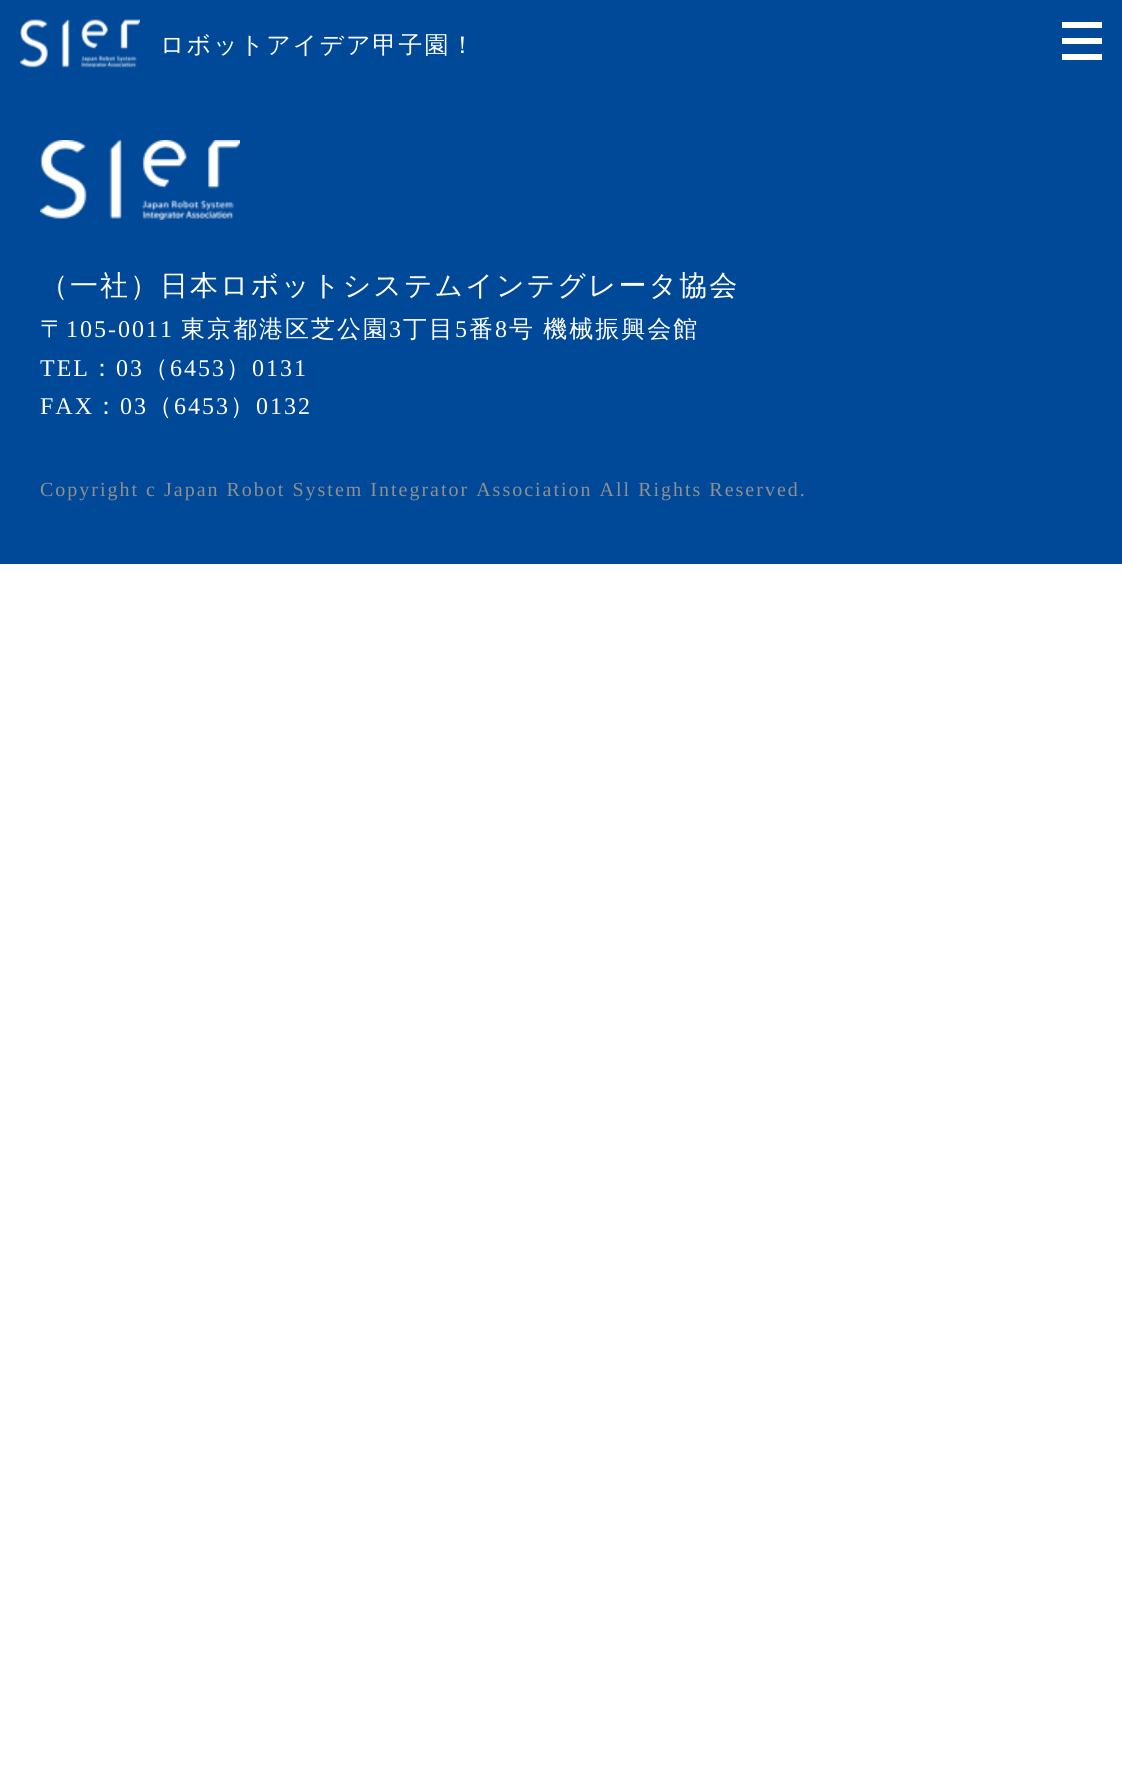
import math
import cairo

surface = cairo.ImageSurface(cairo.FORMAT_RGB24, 1122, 1768)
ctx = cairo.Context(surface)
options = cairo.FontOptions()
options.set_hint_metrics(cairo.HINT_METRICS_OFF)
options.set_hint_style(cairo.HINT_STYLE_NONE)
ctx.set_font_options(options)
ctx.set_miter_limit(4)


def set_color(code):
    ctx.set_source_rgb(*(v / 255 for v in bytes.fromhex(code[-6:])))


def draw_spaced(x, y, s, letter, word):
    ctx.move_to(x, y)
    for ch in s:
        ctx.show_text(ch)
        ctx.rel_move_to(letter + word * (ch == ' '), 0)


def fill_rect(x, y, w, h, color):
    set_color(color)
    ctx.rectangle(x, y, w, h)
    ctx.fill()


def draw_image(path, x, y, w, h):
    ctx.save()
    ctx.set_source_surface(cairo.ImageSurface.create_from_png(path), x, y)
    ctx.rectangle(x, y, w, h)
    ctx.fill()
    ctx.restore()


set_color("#ffffff")
ctx.paint()
fill_rect(0, 0, 1122, 564, "#004898")
draw_image("assets/img1.png", 20, 19, 120, 49)
ctx.select_font_face("WenQuanYi Zen Hei Medium")
ctx.set_font_size(24)
set_color("#ffffff")
draw_spaced(160, 53, "ロボットアイデア甲子園！", 2, 0)
fill_rect(1062, 22, 40, 6, "#ffffff")
fill_rect(1062, 38, 40, 6, "#ffffff")
fill_rect(1062, 54, 40, 6, "#ffffff")
draw_image("assets/img2.png", 40, 140, 200, 80)
ctx.set_font_size(28)
draw_spaced(40, 295, "（一社）日本ロボットシステムインテグレータ協会", 2, 0)
ctx.set_font_size(24)
draw_spaced(40, 337, "〒", 2, 0)
ctx.select_font_face("Liberation Serif")
draw_spaced(66, 337, "105-0011", 2, 0)
ctx.select_font_face("WenQuanYi Zen Hei Medium")
draw_spaced(181, 337, "東京都港区芝公園", 2, 0)
ctx.select_font_face("Liberation Serif")
draw_spaced(389, 337, "3", 2, 0)
ctx.select_font_face("WenQuanYi Zen Hei Medium")
draw_spaced(403, 337, "丁目", 2, 0)
ctx.select_font_face("Liberation Serif")
draw_spaced(455, 337, "5", 2, 0)
ctx.select_font_face("WenQuanYi Zen Hei Medium")
draw_spaced(469, 337, "番", 2, 0)
ctx.select_font_face("Liberation Serif")
draw_spaced(495, 337, "8", 2, 0)
ctx.select_font_face("WenQuanYi Zen Hei Medium")
draw_spaced(509, 337, "号 機械振興会館", 2, -1)
ctx.select_font_face("Liberation Serif")
draw_spaced(40, 376, "TEL", 2, 0)
ctx.select_font_face("WenQuanYi Zen Hei Medium")
draw_spaced(90, 376, "：", 2, 0)
ctx.select_font_face("Liberation Serif")
draw_spaced(116, 376, "03", 2, 0)
ctx.select_font_face("WenQuanYi Zen Hei Medium")
draw_spaced(144, 376, "（", 2, 0)
ctx.select_font_face("Liberation Serif")
draw_spaced(170, 376, "6453", 2, 0)
ctx.select_font_face("WenQuanYi Zen Hei Medium")
draw_spaced(226, 376, "）", 2, 0)
ctx.select_font_face("Liberation Serif")
draw_spaced(252, 376, "0131", 2, 0)
draw_spaced(40, 414, "FAX", 2, 0)
ctx.select_font_face("WenQuanYi Zen Hei Medium")
draw_spaced(94, 414, "：", 2, 0)
ctx.select_font_face("Liberation Serif")
draw_spaced(120, 414, "03", 2, 0)
ctx.select_font_face("WenQuanYi Zen Hei Medium")
draw_spaced(148, 414, "（", 2, 0)
ctx.select_font_face("Liberation Serif")
draw_spaced(174, 414, "6453", 2, 0)
ctx.select_font_face("WenQuanYi Zen Hei Medium")
draw_spaced(230, 414, "）", 2, 0)
ctx.select_font_face("Liberation Serif")
draw_spaced(256, 414, "0132", 2, 0)
ctx.set_font_size(20)
set_color("#909090")
draw_spaced(40, 496, "Copyright c Japan Robot System Integrator Association All Rights Reserved.", 2, 0)
surface.write_to_png("output.png")
